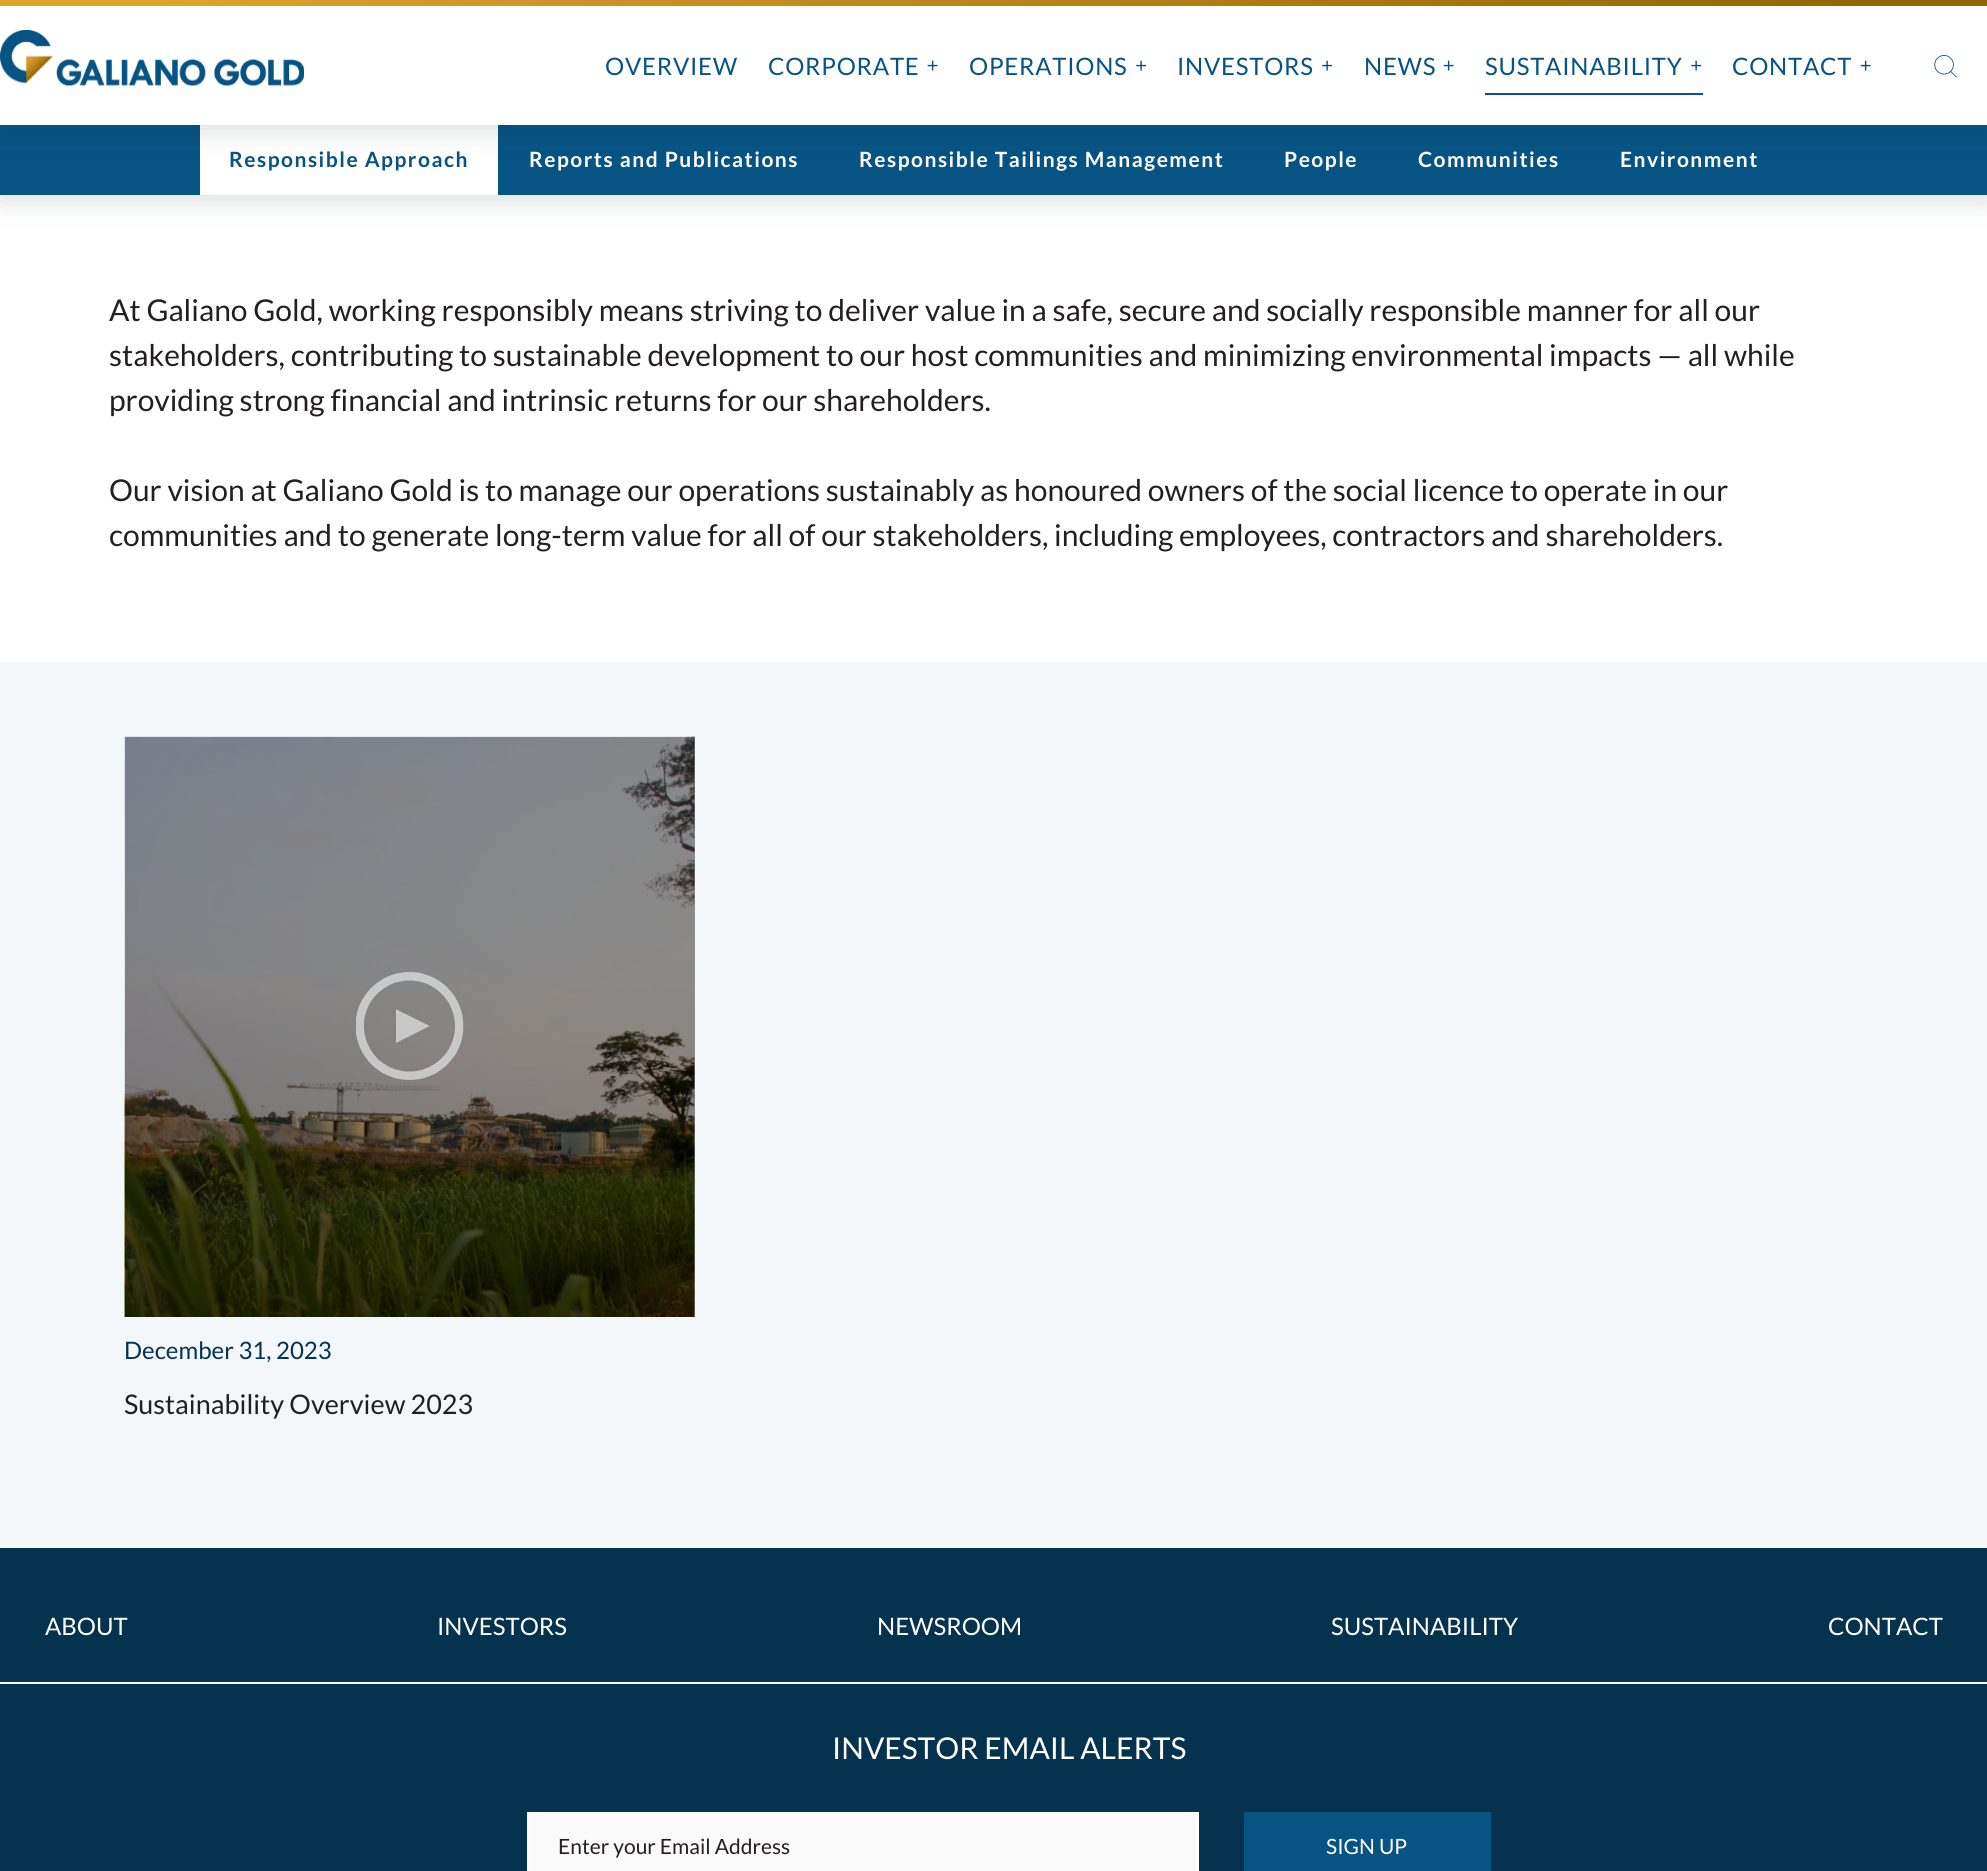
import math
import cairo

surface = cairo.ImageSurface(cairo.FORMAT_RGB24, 1987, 1871)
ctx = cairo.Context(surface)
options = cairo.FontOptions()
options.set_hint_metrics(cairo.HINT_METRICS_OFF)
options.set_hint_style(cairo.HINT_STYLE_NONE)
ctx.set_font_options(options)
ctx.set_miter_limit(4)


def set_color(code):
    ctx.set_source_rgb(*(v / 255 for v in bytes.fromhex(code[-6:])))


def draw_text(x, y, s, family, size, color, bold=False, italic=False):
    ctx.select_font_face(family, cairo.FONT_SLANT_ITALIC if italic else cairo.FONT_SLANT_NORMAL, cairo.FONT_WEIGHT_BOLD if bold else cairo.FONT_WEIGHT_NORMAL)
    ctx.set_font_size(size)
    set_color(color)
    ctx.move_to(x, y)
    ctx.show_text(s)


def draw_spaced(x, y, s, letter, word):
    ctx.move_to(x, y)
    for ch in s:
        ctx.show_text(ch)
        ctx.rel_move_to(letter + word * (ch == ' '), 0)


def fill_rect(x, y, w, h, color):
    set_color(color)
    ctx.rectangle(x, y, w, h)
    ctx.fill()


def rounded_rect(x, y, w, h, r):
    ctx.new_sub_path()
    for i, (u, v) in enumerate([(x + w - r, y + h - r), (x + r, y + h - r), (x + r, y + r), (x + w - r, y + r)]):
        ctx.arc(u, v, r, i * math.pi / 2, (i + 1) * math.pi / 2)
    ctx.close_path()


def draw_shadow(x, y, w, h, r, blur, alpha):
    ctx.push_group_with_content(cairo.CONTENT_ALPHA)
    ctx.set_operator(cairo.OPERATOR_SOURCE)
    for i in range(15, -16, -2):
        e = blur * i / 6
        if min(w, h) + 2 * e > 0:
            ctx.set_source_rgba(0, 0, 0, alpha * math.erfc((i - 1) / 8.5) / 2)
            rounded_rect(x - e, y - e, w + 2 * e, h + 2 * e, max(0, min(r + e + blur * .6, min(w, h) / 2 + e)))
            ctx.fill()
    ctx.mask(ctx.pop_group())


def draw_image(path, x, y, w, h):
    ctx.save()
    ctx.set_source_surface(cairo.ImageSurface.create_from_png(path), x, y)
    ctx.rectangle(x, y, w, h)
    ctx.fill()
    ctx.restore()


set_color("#ffffff")
ctx.paint()
set_color("#283033")
draw_shadow(0, 128, 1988, 70, 0, 15, 0.2)
fill_rect(0, 125, 1987, 70, "#075384")
fill_rect(200, 125, 298, 70, "#ffffff")
set_color("#283033")
draw_shadow(0, 3, 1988, 125, 0, 15, 0.2)
fill_rect(0, 6, 1987, 119, "#ffffff")
draw_image("assets/img1.png", 0, 0, 1987, 6)
draw_image("assets/img2.png", 0, 30, 304, 56)
ctx.select_font_face("Lato")
ctx.set_font_size(24)
set_color("#075384")
draw_spaced(605, 75, "OVERVIEW", 0.75, 0)
draw_spaced(768, 75, "CORPORATE", 0.75, 0)
draw_image("assets/img3.png", 927, 60, 11, 11)
draw_spaced(969, 75, "OPERATIONS", 0.75, 0)
draw_image("assets/img4.png", 1136, 60, 11, 11)
draw_spaced(1177, 75, "INVESTORS", 0.75, 0)
draw_image("assets/img4.png", 1322, 60, 11, 11)
draw_spaced(1364, 75, "NEWS", 0.75, 0)
draw_image("assets/img3.png", 1443, 60, 11, 11)
fill_rect(1485, 93, 218, 2, "#075384")
draw_spaced(1485, 75, "SUSTAINABILITY", 0.75, 0)
draw_image("assets/img4.png", 1691, 60, 11, 11)
draw_spaced(1732, 75, "CONTACT", 0.75, 0)
draw_image("assets/img3.png", 1860, 60, 11, 11)
draw_image("assets/img5.png", 1934, 55, 23, 23)
ctx.select_font_face("Lato", cairo.FONT_SLANT_NORMAL, cairo.FONT_WEIGHT_BOLD)
ctx.set_font_size(21)
draw_spaced(229, 167, "Responsible Approach", 1.5, 0)
set_color("#ffffff")
draw_spaced(529, 167, "Reports and Publications", 1.5, 0)
draw_spaced(859, 167, "Responsible Tailings Management", 1.5, 0)
draw_spaced(1284, 167, "People", 1.5, 0)
draw_spaced(1418, 167, "Communities", 1.5, 0)
draw_spaced(1620, 167, "Environment", 1.5, 0)
draw_text(109, 321, "At Galiano Gold, working responsibly means striving to deliver value in a safe, secure and socially responsible manner for all our", "Lato", 30, "#231f20")
draw_text(109, 366, "stakeholders, contributing to sustainable development to our host communities and minimizing environmental impacts — all while", "Lato", 30, "#231f20")
draw_text(109, 411, "providing strong financial and intrinsic returns for our shareholders.", "Lato", 30, "#231f20")
draw_text(109, 501, "Our vision at Galiano Gold is to manage our operations sustainably as honoured owners of the social licence to operate in our", "Lato", 30, "#231f20")
draw_text(109, 546, "communities and to generate long-term value for all of our stakeholders, including employees, contractors and shareholders.", "Lato", 30, "#231f20")
fill_rect(0, 662, 1987, 886, "#f3f7f9")
fill_rect(694, 737, 1, 580, "#929495")
draw_image("assets/img6.png", 124, 736, 571, 581)
draw_image("assets/img7.png", 356, 972, 108, 108)
draw_text(124, 1359, "December 31, 2023", "Lato", 24, "#04324f")
draw_text(124, 1414, "Sustainability Overview 2023", "Lato", 27, "#231f20")
fill_rect(0, 1548, 1987, 323, "#04324f")
fill_rect(0, 1682, 1987, 2, "#ffffff")
draw_text(45, 1635, "ABOUT", "Lato", 24, "#ffffff")
draw_text(437, 1635, "INVESTORS", "Lato", 24, "#ffffff")
draw_text(877, 1635, "NEWSROOM", "Lato", 24, "#ffffff")
draw_text(1331, 1635, "SUSTAINABILITY", "Lato", 24, "#ffffff")
draw_text(1828, 1635, "CONTACT", "Lato", 24, "#ffffff")
draw_text(832, 1759, "INVESTOR EMAIL ALERTS", "Lato", 30, "#ffffff")
set_color("#fafafa")
ctx.rectangle(528, 1813, 670, 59)
ctx.fill_preserve()
set_color("#ffffff")
ctx.stroke()
draw_text(558, 1854, "Enter your Email Address", "Lato", 21, "#231f20")
fill_rect(1244, 1812, 247, 59, "#075384")
draw_text(1326, 1854, "SIGN UP", "Lato", 21, "#ffffff")
surface.write_to_png("output.png")
